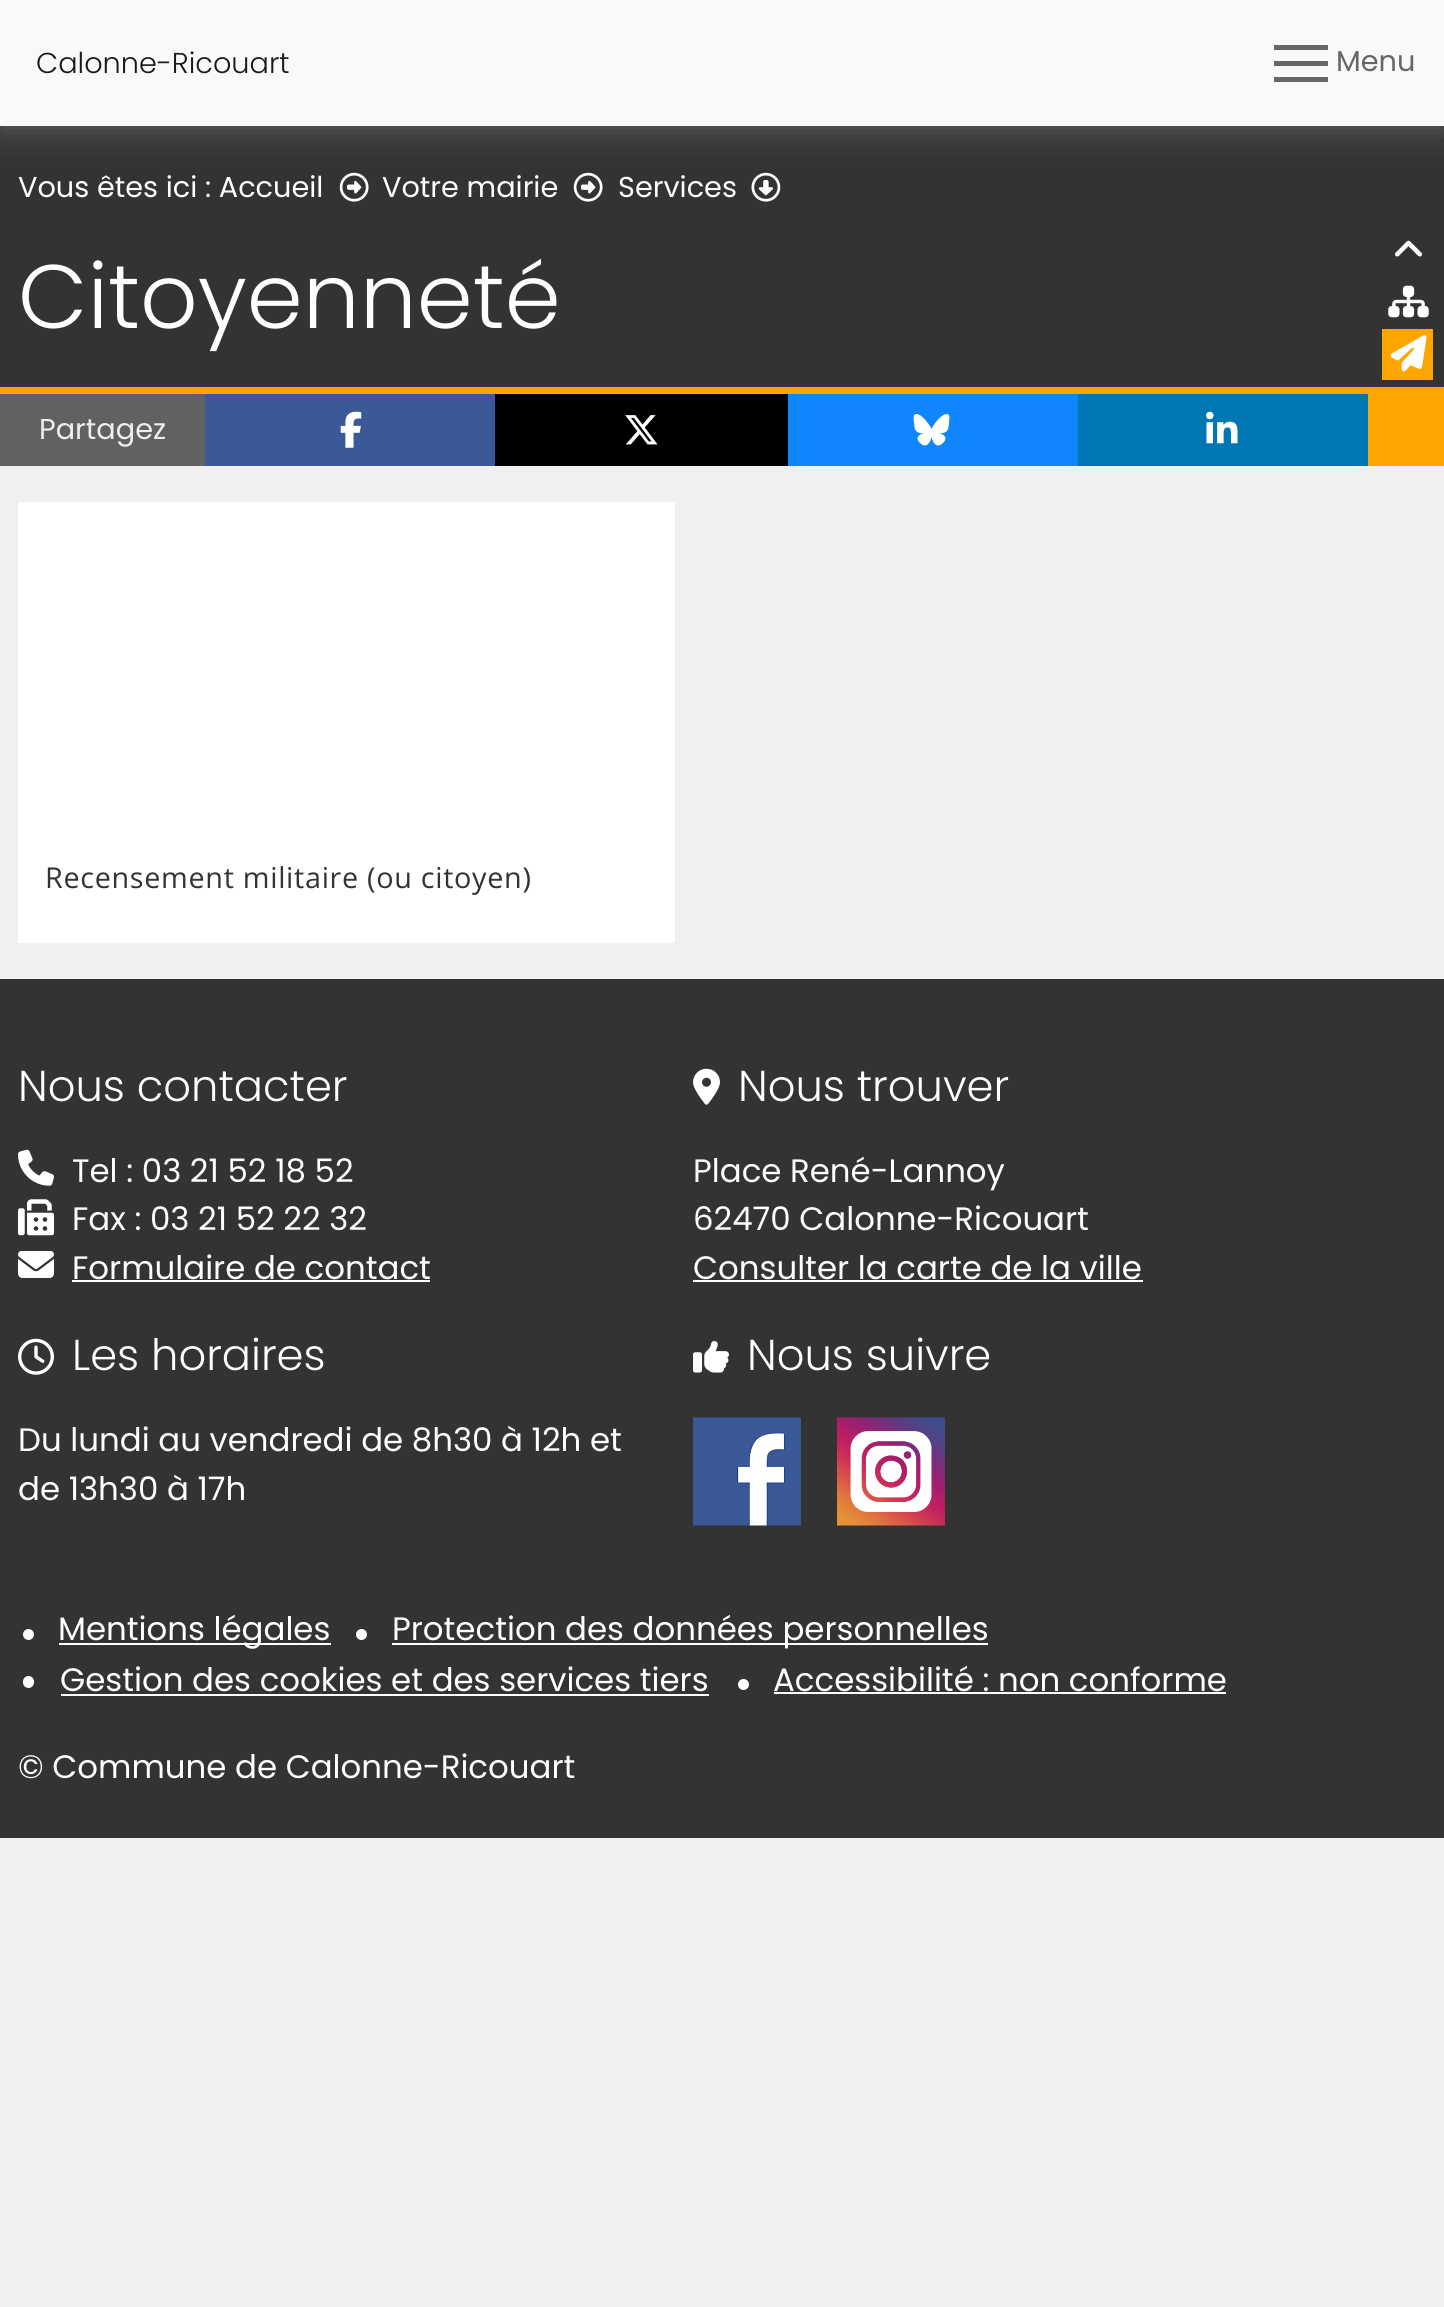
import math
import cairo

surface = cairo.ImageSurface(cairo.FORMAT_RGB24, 1444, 2307)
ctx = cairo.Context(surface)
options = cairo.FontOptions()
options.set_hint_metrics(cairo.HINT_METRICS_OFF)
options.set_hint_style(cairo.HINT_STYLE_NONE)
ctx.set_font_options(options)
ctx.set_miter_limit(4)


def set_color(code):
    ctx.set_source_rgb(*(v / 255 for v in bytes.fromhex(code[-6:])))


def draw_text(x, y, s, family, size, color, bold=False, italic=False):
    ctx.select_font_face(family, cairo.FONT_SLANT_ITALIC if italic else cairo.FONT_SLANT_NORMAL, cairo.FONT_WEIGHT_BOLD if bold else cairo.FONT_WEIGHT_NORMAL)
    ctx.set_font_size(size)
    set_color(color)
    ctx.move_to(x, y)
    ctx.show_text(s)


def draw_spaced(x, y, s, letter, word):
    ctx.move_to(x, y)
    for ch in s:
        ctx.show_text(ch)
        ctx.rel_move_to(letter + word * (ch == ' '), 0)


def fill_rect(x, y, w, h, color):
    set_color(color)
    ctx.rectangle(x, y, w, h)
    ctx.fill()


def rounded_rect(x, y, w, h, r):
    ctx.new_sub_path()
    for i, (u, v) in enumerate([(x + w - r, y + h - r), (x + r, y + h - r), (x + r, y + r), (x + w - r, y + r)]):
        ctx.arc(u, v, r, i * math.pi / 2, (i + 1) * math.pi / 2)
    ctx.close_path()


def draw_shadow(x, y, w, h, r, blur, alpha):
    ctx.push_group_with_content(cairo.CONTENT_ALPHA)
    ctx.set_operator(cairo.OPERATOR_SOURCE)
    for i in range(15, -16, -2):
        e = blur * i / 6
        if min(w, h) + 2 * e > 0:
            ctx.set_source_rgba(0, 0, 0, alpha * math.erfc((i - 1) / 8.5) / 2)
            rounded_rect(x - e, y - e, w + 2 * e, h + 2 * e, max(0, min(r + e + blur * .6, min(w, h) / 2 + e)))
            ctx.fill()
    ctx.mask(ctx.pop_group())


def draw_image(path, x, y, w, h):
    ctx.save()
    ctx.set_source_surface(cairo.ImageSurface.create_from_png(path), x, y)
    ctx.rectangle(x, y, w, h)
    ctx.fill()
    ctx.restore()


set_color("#f0f0f0")
ctx.paint()
fill_rect(0, 126, 1444, 261, "#333333")
draw_image("assets/img1.png", 339, 172, 30, 30)
draw_image("assets/img1.png", 573, 172, 30, 30)
draw_image("assets/img2.png", 751, 172, 30, 30)
set_color("#666666")
draw_shadow(0, 0, 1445, 126, 0, 17, 1)
fill_rect(0, 0, 1444, 126, "#f8f9fa")
draw_text(36, 73, "Calonne-Ricouart", "Poppins Light", 28.75, "#191919")
fill_rect(1274, 45, 54, 5, "#666666")
fill_rect(1274, 61, 54, 5, "#666666")
fill_rect(1274, 77, 54, 5, "#666666")
draw_text(1336, 71, "Menu", "Poppins", 28.75, "#666666")
draw_text(18, 197, "Vous êtes ici : Accueil", "Poppins", 28.75, "#ffffff")
draw_text(382, 197, "Votre mairie", "Poppins", 28.75, "#ffffff")
draw_text(618, 197, "Services", "Poppins", 28.75, "#ffffff")
draw_text(18, 328, "Citoyenneté", "Poppins Light", 90, "#ffffff")
fill_rect(0, 387, 1368, 7, "#ffa500")
fill_rect(1368, 387, 76, 79, "#ffa500")
fill_rect(0, 394, 205, 72, "#616161")
draw_text(39, 439, "Partagez", "Poppins", 28.75, "#eeeeee")
fill_rect(205, 394, 290, 72, "#3b5998")
draw_image("assets/img3.png", 340, 411, 22, 37)
fill_rect(495, 394, 293, 72, "#000000")
draw_image("assets/img4.png", 625, 415, 33, 30)
fill_rect(788, 394, 290, 72, "#1185fe")
draw_image("assets/img5.png", 913, 414, 37, 32)
fill_rect(1078, 394, 290, 72, "#0077b5")
draw_image("assets/img6.png", 1206, 411, 32, 33)
draw_image("assets/img7.png", 1395, 240, 27, 17)
draw_image("assets/img8.png", 1388, 285, 41, 33)
fill_rect(1382, 329, 51, 51, "#ffa500")
draw_image("assets/img9.png", 1390, 335, 37, 37)
fill_rect(18, 502, 657, 441, "#ffffff")
ctx.select_font_face("Open Sans")
set_color("#333333")
draw_spaced(45, 888, "Recensement militaire (ou citoyen)", 0.7, 0)
fill_rect(0, 979, 1444, 859, "#333333")
draw_text(18, 1101, "Nous contacter", "Poppins Light", 43.25, "#ffffff")
draw_image("assets/img10.png", 18, 1149, 36, 37)
draw_text(72, 1182, "Tel : 03 21 52 18 52", "Poppins", 32.4, "#ffffff")
draw_image("assets/img11.png", 18, 1199, 36, 37)
draw_text(72, 1230, "Fax : 03 21 52 22 32", "Poppins", 32.4, "#ffffff")
draw_image("assets/img12.png", 18, 1251, 36, 27)
draw_text(72, 1279, "Formulaire de contact", "Poppins", 32.4, "#ffffff")
fill_rect(72, 1280, 358, 2, "#ffffff")
draw_image("assets/img13.png", 693, 1068, 27, 37)
draw_text(738, 1101, "Nous trouver", "Poppins Light", 43.25, "#ffffff")
draw_text(693, 1182, "Place René-Lannoy", "Poppins", 32.4, "#ffffff")
draw_text(693, 1230, "62470 Calonne-Ricouart", "Poppins", 32.4, "#ffffff")
draw_text(693, 1279, "Consulter la carte de la ville", "Poppins", 32.4, "#ffffff")
fill_rect(693, 1280, 450, 2, "#ffffff")
draw_image("assets/img14.png", 18, 1338, 36, 37)
draw_text(72, 1370, "Les horaires", "Poppins Light", 43.25, "#ffffff")
draw_text(18, 1451, "Du lundi au vendredi de 8h30 à 12h et", "Poppins", 32.4, "#ffffff")
draw_text(18, 1500, "de 13h30 à 17h", "Poppins", 32.4, "#ffffff")
draw_image("assets/img15.png", 693, 1341, 36, 32)
draw_text(747, 1370, "Nous suivre", "Poppins Light", 43.25, "#ffffff")
draw_image("assets/img16.png", 693, 1417, 108, 109)
draw_image("assets/img17.png", 837, 1417, 108, 109)
ctx.arc(28.5, 1634.5, 5.5, 0, 2 * math.pi)
ctx.fill()
fill_rect(59, 1643, 272, 2, "#ffffff")
draw_text(58, 1640, "Mentions légales", "Poppins", 32.4, "#ffffff")
ctx.new_path()
ctx.arc(361.5, 1634.5, 5.5, 0, 2 * math.pi)
ctx.fill()
fill_rect(392, 1643, 596, 2, "#ffffff")
draw_text(392, 1640, "Protection des données personnelles", "Poppins", 32.4, "#ffffff")
rounded_rect(23, 1676, 11, 12, 5.5)
ctx.fill()
draw_text(60, 1691, "Gestion des cookies et des services tiers", "Poppins", 32.4, "#ffffff")
fill_rect(61, 1694, 648, 2, "#ffffff")
ctx.new_path()
ctx.arc(743.5, 1684.5, 5.5, 0, 2 * math.pi)
ctx.fill()
draw_text(773, 1691, "Accessibilité : non conforme", "Poppins", 32.4, "#ffffff")
fill_rect(774, 1692, 452, 2, "#ffffff")
draw_text(18, 1778, "© Commune de Calonne-Ricouart", "Poppins", 32.4, "#ffffff")
surface.write_to_png("output.png")
